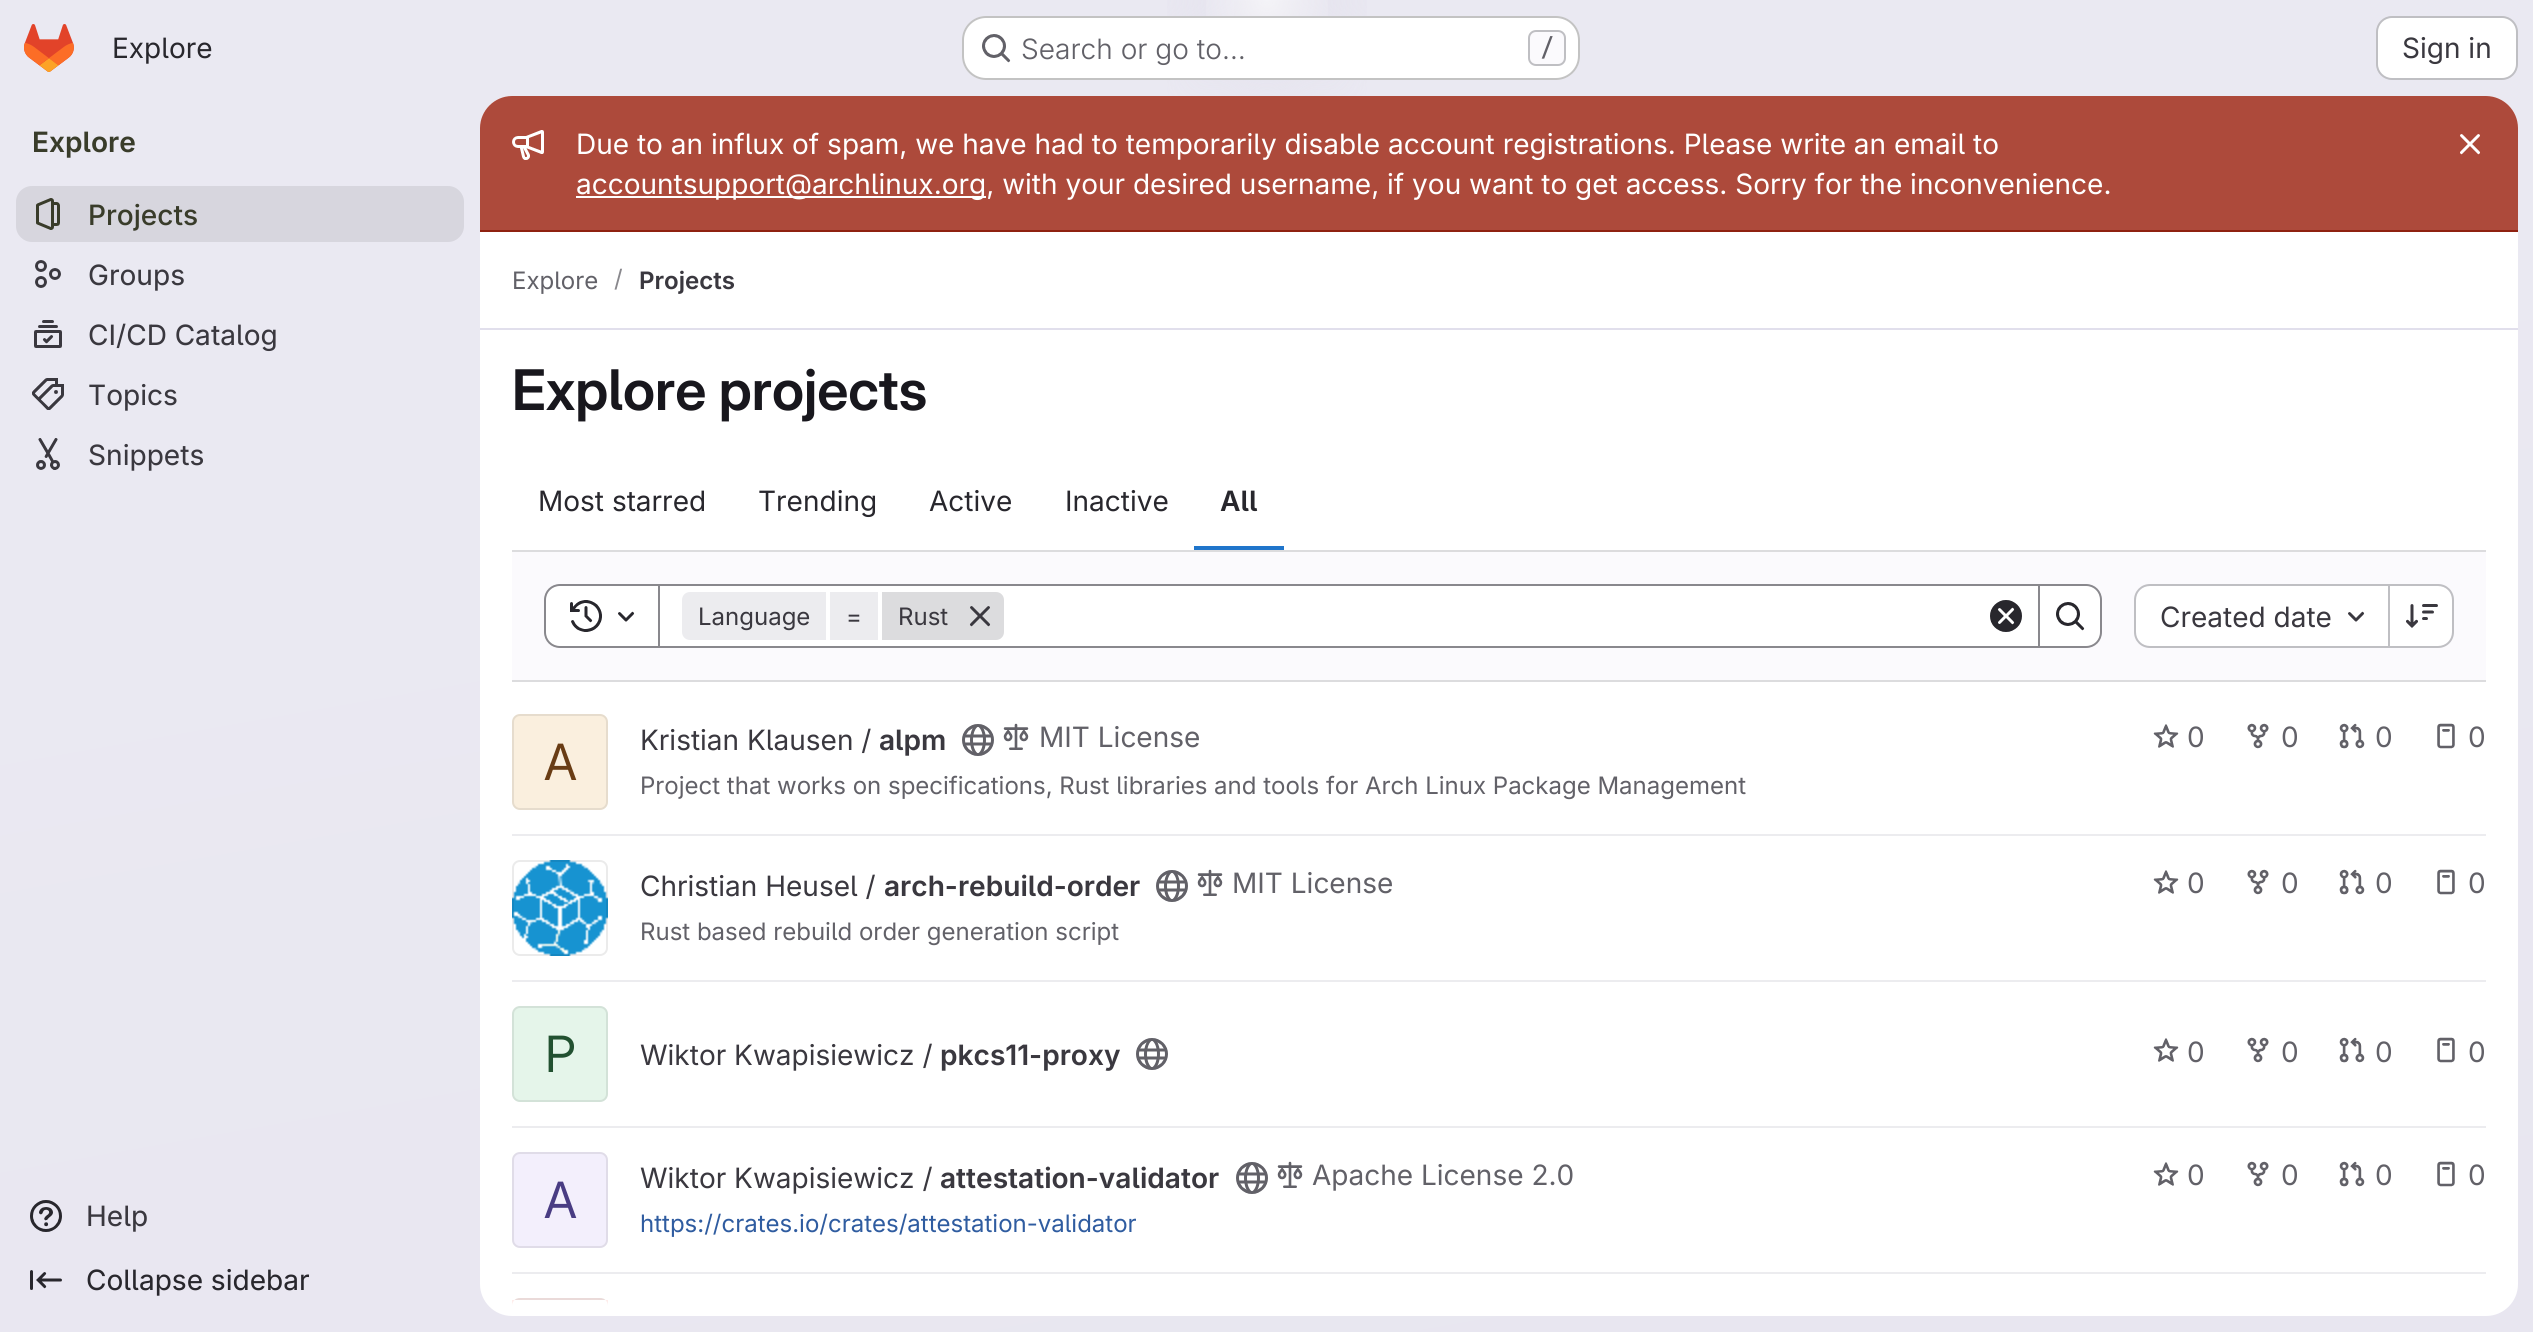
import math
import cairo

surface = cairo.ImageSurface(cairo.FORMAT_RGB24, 2533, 1332)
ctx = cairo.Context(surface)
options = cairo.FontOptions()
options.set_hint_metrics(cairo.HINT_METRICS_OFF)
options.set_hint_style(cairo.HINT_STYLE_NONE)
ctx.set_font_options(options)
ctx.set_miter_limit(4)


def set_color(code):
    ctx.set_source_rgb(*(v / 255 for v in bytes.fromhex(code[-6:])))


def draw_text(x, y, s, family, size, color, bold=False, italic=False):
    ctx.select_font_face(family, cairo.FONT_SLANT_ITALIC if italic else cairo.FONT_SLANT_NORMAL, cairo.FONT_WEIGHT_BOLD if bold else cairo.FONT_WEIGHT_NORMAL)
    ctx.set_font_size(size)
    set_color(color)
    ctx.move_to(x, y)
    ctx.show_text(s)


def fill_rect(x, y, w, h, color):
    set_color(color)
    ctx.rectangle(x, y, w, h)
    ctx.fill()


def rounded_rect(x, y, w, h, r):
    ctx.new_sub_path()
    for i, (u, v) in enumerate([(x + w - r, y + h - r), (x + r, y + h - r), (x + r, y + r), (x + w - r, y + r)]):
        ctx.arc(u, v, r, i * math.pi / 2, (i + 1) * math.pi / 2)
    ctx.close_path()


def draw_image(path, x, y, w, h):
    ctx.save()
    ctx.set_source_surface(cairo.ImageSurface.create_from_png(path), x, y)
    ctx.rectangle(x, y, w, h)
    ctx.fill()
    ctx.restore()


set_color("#ffffff")
ctx.paint()
gradient = cairo.LinearGradient(1419, 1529, 1115, -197)
gradient.add_color_stop_rgba(0, 0.91, 0.902, 0.941, 1)
gradient.add_color_stop_rgba(0.7, 0.918, 0.914, 0.949, 1)
ctx.set_source(gradient)
ctx.rectangle(0, 0, 2533, 1332)
ctx.fill()
gradient = cairo.RadialGradient(0, 0, 0, 0, 0, 1)
gradient.set_matrix(cairo.Matrix(1 / 1267, 0, 0, 1 / 1332, -1 * 1267 / 1267, -1 * 0 / 1332))
gradient.add_color_stop_rgba(0, 0.894, 0.886, 0.929, 1)
gradient.add_color_stop_rgba(0.11, 0.894, 0.886, 0.929, 0)
ctx.set_source(gradient)
ctx.rectangle(1167, 0, 200, 96)
ctx.fill()
gradient = cairo.RadialGradient(0, 0, 0, 0, 0, 1)
gradient.set_matrix(cairo.Matrix(1 / 1267, 0, 0, 1 / 1332, -1 * 1267 / 1267, -1 * 0 / 1332))
gradient.add_color_stop_rgba(0, 0.894, 0.886, 0.925, 1)
gradient.add_color_stop_rgba(0.08, 0.894, 0.886, 0.925, 0)
ctx.set_source(gradient)
ctx.rectangle(1234, 1, 66, 43)
ctx.fill()
gradient = cairo.RadialGradient(1267, 0, 0, 1267, 0, 1838)
gradient.add_color_stop_rgba(0, 1, 1, 1, 0.6)
gradient.add_color_stop_rgba(0.04, 1, 1, 1, 0)
ctx.set_source(gradient)
ctx.rectangle(1206, 0, 122, 16)
ctx.fill()
draw_image("assets/img1.png", 24, 24, 50, 48)
draw_text(112, 58, "Explore", "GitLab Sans", 28, "#28272d")
set_color("#ffffff")
rounded_rect(962, 16, 618, 64, 24)
ctx.fill()
rounded_rect(963, 17, 616, 62, 23)
ctx.set_source_rgba(0.02, 0.02, 0.024, 0.24)
ctx.stroke()
draw_image("assets/img2.png", 982, 34, 29, 29)
draw_text(1021, 59, "Search or go to…", "GitLab Sans Light", 28, "#626168")
set_color("#fbfafd")
rounded_rect(1529, 31, 36, 34, 7)
ctx.fill_preserve()
set_color("#bfbfc3")
ctx.stroke()
draw_text(1540, 56, "/", "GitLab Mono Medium", 24, "#626168")
set_color("#ffffff")
rounded_rect(2377, 17, 140, 62, 15)
ctx.fill_preserve()
set_color("#bfbfc3")
ctx.stroke()
draw_text(2402, 58, "Sign in", "GitLab Sans", 28, "#3a383f")
draw_text(32, 152, "Explore", "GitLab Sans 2 SemiBold", 28, "#393c2a")
set_color("#d7d6de")
rounded_rect(16, 186, 448, 56, 16)
ctx.fill()
draw_image("assets/img3.png", 36, 198, 24, 32)
draw_text(88, 225, "Projects", "GitLab Sans Medium", 28, "#393c2a")
draw_image("assets/img4.png", 35, 260, 26, 28)
draw_text(88, 285, "Groups", "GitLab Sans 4", 28, "#3a383f")
draw_image("assets/img5.png", 34, 320, 28, 28)
draw_text(88, 345, "CI/CD Catalog", "GitLab Sans 4", 28, "#3a383f")
draw_image("assets/img6.png", 32, 378, 32, 32)
draw_text(88, 405, "Topics", "GitLab Sans 4", 28, "#3a383f")
draw_image("assets/img7.png", 36, 438, 24, 32)
draw_text(88, 465, "Snippets", "GitLab Sans 4", 28, "#3a383f")
draw_image("assets/img8.png", 30, 1200, 32, 32)
draw_text(86, 1226, "Help", "GitLab Sans 4", 28, "#3a383f")
draw_image("assets/img9.png", 30, 1270, 32, 20)
draw_text(86, 1290, "Collapse sidebar", "GitLab Sans 4", 28, "#28272d")
set_color("#ffffff")
rounded_rect(480, 96, 2038, 1220, 32)
ctx.fill()
set_color("#ad4a3b")
ctx.new_path()
ctx.move_to(512, 96)
ctx.line_to(2486, 96)
ctx.curve_to(2503.5, 96, 2518, 110.5, 2518, 128)
ctx.line_to(2518, 232)
ctx.line_to(480, 232)
ctx.line_to(480, 128)
ctx.curve_to(480, 110.5, 494.5, 96, 512, 96)
ctx.close_path()
ctx.fill()
fill_rect(480, 230, 2038, 2, "#8f2110")
draw_image("assets/img10.png", 512, 130, 32, 30)
draw_text(576, 154, "Due to an influx of spam, we have had to temporarily disable account registrations. Please write an email to", "GitLab Sans", 28, "#ffffff")
fill_rect(576, 196, 410, 2, "#ffffff")
draw_text(576, 194, "accountsupport@archlinux.org, with your desired username, if you want to get access. Sorry for the inconvenience.", "GitLab Sans", 28, "#ffffff")
draw_image("assets/img11.png", 2460, 134, 20, 21)
fill_rect(480, 328, 2038, 2, "#e1dfec")
draw_text(512, 289, "Explore", "GitLab Sans", 24, "#626168")
draw_text(614, 287, "/", "GitLab Sans", 24, "#89888d")
draw_text(639, 289, "Projects", "GitLab Sans 2 SemiBold", 24, "#3a383f")
draw_text(512, 410, "Explore projects", "GitLab Sans SemiBold", 56, "#18171d")
draw_text(538, 511, "Most starred", "GitLab Sans", 28, "#28272d")
draw_text(758, 511, "Trending", "GitLab Sans", 28, "#28272d")
draw_text(929, 511, "Active", "GitLab Sans", 28, "#28272d")
draw_text(1065, 511, "Inactive", "GitLab Sans", 28, "#28272d")
draw_text(1220, 511, "All", "GitLab Sans 2 SemiBold", 28, "#28272d")
fill_rect(1194, 546, 90, 4, "#1f75cb")
fill_rect(512, 552, 1974, 128, "#fbfafd")
fill_rect(512, 550, 1974, 2, "#dcdcde")
fill_rect(512, 680, 1974, 2, "#dcdcde")
set_color("#ffffff")
ctx.rectangle(659, 585, 1380, 62)
ctx.fill_preserve()
set_color("#89888d")
ctx.stroke()
set_color("#ffffff")
ctx.new_path()
ctx.move_to(560, 585)
ctx.line_to(659, 585)
ctx.line_to(659, 647)
ctx.line_to(560, 647)
ctx.curve_to(551.5, 647, 545, 640.5, 545, 632)
ctx.line_to(545, 600)
ctx.curve_to(545, 591.5, 551.5, 585, 560, 585)
ctx.close_path()
ctx.fill_preserve()
set_color("#89888d")
ctx.stroke()
draw_image("assets/img12.png", 570, 600, 32, 32)
draw_image("assets/img13.png", 618, 611, 17, 11)
set_color("#ececef")
ctx.new_path()
ctx.move_to(690, 592)
ctx.line_to(826, 592)
ctx.line_to(826, 640)
ctx.line_to(690, 640)
ctx.curve_to(685.5, 640, 682, 636.5, 682, 632)
ctx.line_to(682, 600)
ctx.curve_to(682, 595.5, 685.5, 592, 690, 592)
ctx.close_path()
ctx.fill()
draw_text(698, 625, "Language", "GitLab Sans", 24, "#3a383f")
fill_rect(830, 592, 48, 48, "#ececef")
draw_text(846, 625, "=", "GitLab Sans", 24, "#3a383f")
set_color("#dcdcde")
ctx.new_path()
ctx.move_to(882, 592)
ctx.line_to(996, 592)
ctx.curve_to(1000.5, 592, 1004, 595.5, 1004, 600)
ctx.line_to(1004, 632)
ctx.curve_to(1004, 636.5, 1000.5, 640, 996, 640)
ctx.line_to(882, 640)
ctx.close_path()
ctx.fill()
draw_text(898, 625, "Rust", "GitLab Sans", 24, "#3a383f")
draw_image("assets/img14.png", 969, 606, 22, 21)
draw_image("assets/img15.png", 1990, 600, 32, 32)
set_color("#ffffff")
ctx.new_path()
ctx.move_to(2039, 585)
ctx.line_to(2086, 585)
ctx.curve_to(2094.5, 585, 2101, 591.5, 2101, 600)
ctx.line_to(2101, 632)
ctx.curve_to(2101, 640.5, 2094.5, 647, 2086, 647)
ctx.line_to(2039, 647)
ctx.close_path()
ctx.fill_preserve()
set_color("#89888d")
ctx.stroke()
draw_image("assets/img16.png", 2056, 602, 29, 29)
set_color("#ffffff")
ctx.new_path()
ctx.move_to(2150, 586)
ctx.line_to(2388, 586)
ctx.line_to(2388, 646)
ctx.line_to(2150, 646)
ctx.curve_to(2142.5, 646, 2136, 639.5, 2136, 632)
ctx.line_to(2136, 600)
ctx.curve_to(2136, 592.5, 2142.5, 586, 2150, 586)
ctx.close_path()
ctx.fill()
set_color("#bfbfc3")
ctx.set_fill_rule(cairo.FILL_RULE_EVEN_ODD)
ctx.new_path()
ctx.move_to(2150, 584)
ctx.line_to(2388, 584)
ctx.line_to(2388, 648)
ctx.line_to(2150, 648)
ctx.curve_to(2141, 648, 2134, 641, 2134, 632)
ctx.line_to(2134, 600)
ctx.curve_to(2134, 591, 2141, 584, 2150, 584)
ctx.close_path()
ctx.move_to(2150, 586)
ctx.line_to(2388, 586)
ctx.line_to(2388, 646)
ctx.line_to(2150, 646)
ctx.curve_to(2142, 646, 2136, 640, 2136, 632)
ctx.line_to(2136, 600)
ctx.curve_to(2136, 592, 2142, 586, 2150, 586)
ctx.close_path()
ctx.fill()
draw_text(2160, 627, "Created date", "GitLab Sans", 28, "#3a383f")
draw_image("assets/img17.png", 2348, 611, 17, 11)
set_color("#ffffff")
ctx.new_path()
ctx.move_to(2390, 586)
ctx.line_to(2438, 586)
ctx.curve_to(2445.5, 586, 2452, 592.5, 2452, 600)
ctx.line_to(2452, 632)
ctx.curve_to(2452, 639.5, 2445.5, 646, 2438, 646)
ctx.line_to(2390, 646)
ctx.close_path()
ctx.fill()
set_color("#bfbfc3")
ctx.new_path()
ctx.move_to(2390, 584)
ctx.line_to(2438, 584)
ctx.curve_to(2447, 584, 2454, 591, 2454, 600)
ctx.line_to(2454, 632)
ctx.curve_to(2454, 641, 2447, 648, 2438, 648)
ctx.line_to(2390, 648)
ctx.close_path()
ctx.move_to(2390, 586)
ctx.line_to(2438, 586)
ctx.curve_to(2446, 586, 2452, 592, 2452, 600)
ctx.line_to(2452, 632)
ctx.curve_to(2452, 640, 2446, 646, 2438, 646)
ctx.line_to(2390, 646)
ctx.close_path()
ctx.fill()
fill_rect(2388, 584, 2, 64, "#bfbfc3")
draw_image("assets/img18.png", 2406, 604, 32, 24)
fill_rect(512, 834, 1974, 2, "#ececef")
draw_text(640, 750, "Kristian Klausen /", "GitLab Sans", 28, "#3a383f")
draw_text(879, 750, "alpm", "GitLab Sans 2 SemiBold", 28, "#3a383f")
draw_image("assets/img19.png", 962, 724, 32, 32)
draw_image("assets/img20.png", 1003, 723, 26, 27)
draw_text(1039, 747, "MIT License", "GitLab Sans", 28, "#626168")
draw_text(640, 794, "Project that works on specifications, Rust libraries and tools for Arch Linux Package Management", "GitLab Sans", 24, "#626168")
draw_image("assets/img21.png", 2153, 724, 26, 24)
draw_text(2187, 747, "0", "GitLab Sans", 28, "#626168")
draw_image("assets/img22.png", 2247, 723, 22, 26)
draw_text(2281, 747, "0", "GitLab Sans", 28, "#626168")
draw_image("assets/img23.png", 2339, 723, 26, 26)
draw_text(2375, 747, "0", "GitLab Sans", 28, "#626168")
draw_image("assets/img24.png", 2437, 723, 18, 26)
draw_text(2468, 747, "0", "GitLab Sans", 28, "#626168")
set_color("#faefde")
rounded_rect(512, 714, 96, 96, 8)
ctx.fill()
rounded_rect(513, 715, 94, 94, 7)
ctx.set_source_rgba(0.02, 0.02, 0.024, 0.08)
ctx.stroke()
draw_text(544, 780, "A", "GitLab Sans 2", 50, "#693c14")
fill_rect(512, 980, 1974, 2, "#ececef")
draw_image("assets/img25.png", 512, 860, 96, 96)
rounded_rect(513, 861, 94, 94, 7)
ctx.set_source_rgba(0.02, 0.02, 0.024, 0.08)
ctx.stroke()
draw_text(640, 896, "Christian Heusel /", "GitLab Sans", 28, "#3a383f")
draw_text(884, 896, "arch-rebuild-order", "GitLab Sans 2 SemiBold", 28, "#3a383f")
draw_image("assets/img19.png", 1156, 870, 32, 32)
draw_image("assets/img26.png", 1197, 869, 26, 27)
draw_text(1232, 893, "MIT License", "GitLab Sans", 28, "#626168")
draw_text(640, 940, "Rust based rebuild order generation script", "GitLab Sans", 24, "#626168")
draw_image("assets/img21.png", 2153, 870, 26, 24)
draw_text(2187, 893, "0", "GitLab Sans", 28, "#626168")
draw_image("assets/img22.png", 2247, 869, 22, 26)
draw_text(2281, 893, "0", "GitLab Sans", 28, "#626168")
draw_image("assets/img23.png", 2339, 869, 26, 26)
draw_text(2375, 893, "0", "GitLab Sans", 28, "#626168")
draw_image("assets/img24.png", 2437, 869, 18, 26)
draw_text(2468, 893, "0", "GitLab Sans", 28, "#626168")
fill_rect(512, 1126, 1974, 2, "#ececef")
set_color("#e5f5ea")
rounded_rect(512, 1006, 96, 96, 8)
ctx.fill()
rounded_rect(513, 1007, 94, 94, 7)
ctx.set_source_rgba(0.02, 0.02, 0.024, 0.08)
ctx.stroke()
draw_text(545, 1072, "P", "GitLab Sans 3", 50, "#225131")
draw_text(640, 1065, "Wiktor Kwapisiewicz /", "GitLab Sans", 28, "#3a383f")
draw_text(940, 1065, "pkcs11-proxy", "GitLab Sans 2 SemiBold", 28, "#3a383f")
draw_image("assets/img19.png", 1136, 1038, 32, 32)
draw_image("assets/img21.png", 2153, 1038, 26, 24)
draw_text(2187, 1062, "0", "GitLab Sans", 28, "#626168")
draw_image("assets/img22.png", 2247, 1037, 22, 26)
draw_text(2281, 1062, "0", "GitLab Sans", 28, "#626168")
draw_image("assets/img23.png", 2339, 1037, 26, 26)
draw_text(2375, 1062, "0", "GitLab Sans", 28, "#626168")
draw_image("assets/img24.png", 2437, 1037, 18, 26)
draw_text(2468, 1062, "0", "GitLab Sans", 28, "#626168")
fill_rect(512, 1272, 1974, 2, "#ececef")
draw_text(640, 1188, "Wiktor Kwapisiewicz /", "GitLab Sans", 28, "#3a383f")
draw_text(940, 1188, "attestation-validator", "GitLab Sans 2 SemiBold", 28, "#3a383f")
draw_image("assets/img19.png", 1236, 1162, 32, 32)
draw_image("assets/img26.png", 1277, 1161, 26, 27)
draw_text(1312, 1185, "Apache License 2.0", "GitLab Sans", 28, "#626168")
draw_text(640, 1232, "https://crates.io/crates/attestation-validator", "GitLab Sans", 24, "#2f5ca0")
draw_image("assets/img21.png", 2153, 1162, 26, 24)
draw_text(2187, 1185, "0", "GitLab Sans", 28, "#626168")
draw_image("assets/img22.png", 2247, 1161, 22, 26)
draw_text(2281, 1185, "0", "GitLab Sans", 28, "#626168")
draw_image("assets/img23.png", 2339, 1161, 26, 26)
draw_text(2375, 1185, "0", "GitLab Sans", 28, "#626168")
draw_image("assets/img24.png", 2437, 1161, 18, 26)
draw_text(2468, 1185, "0", "GitLab Sans", 28, "#626168")
set_color("#f3effc")
rounded_rect(512, 1152, 96, 96, 8)
ctx.fill()
rounded_rect(513, 1153, 94, 94, 7)
ctx.set_source_rgba(0.02, 0.02, 0.024, 0.08)
ctx.stroke()
draw_text(544, 1218, "A", "GitLab Sans 2", 50, "#493c83")
set_color("#feedeb")
ctx.new_path()
ctx.move_to(520, 1298)
ctx.line_to(600, 1298)
ctx.curve_to(604.5, 1298, 608, 1301.5, 608, 1306)
ctx.line_to(608, 1300)
ctx.line_to(512, 1300)
ctx.line_to(512, 1306)
ctx.curve_to(512, 1301.5, 515.5, 1298, 520, 1298)
ctx.close_path()
ctx.fill()
ctx.save()
ctx.set_fill_rule(cairo.FILL_RULE_WINDING)
ctx.rectangle(480, 330, 2038, 970)
ctx.clip()
ctx.set_source_rgba(0.02, 0.02, 0.024, 0.08)
ctx.new_path()
ctx.move_to(520, 1298)
ctx.curve_to(510, 1298, 512, 1310, 512, 1316)
ctx.line_to(514, 1316)
ctx.curve_to(514, 1298, 513, 1300, 533, 1300)
ctx.line_to(587, 1300)
ctx.curve_to(607, 1300, 606, 1298, 606, 1316)
ctx.line_to(608, 1316)
ctx.curve_to(608, 1310, 610, 1298, 600, 1298)
ctx.close_path()
ctx.fill()
ctx.restore()
surface.write_to_png("output.png")
